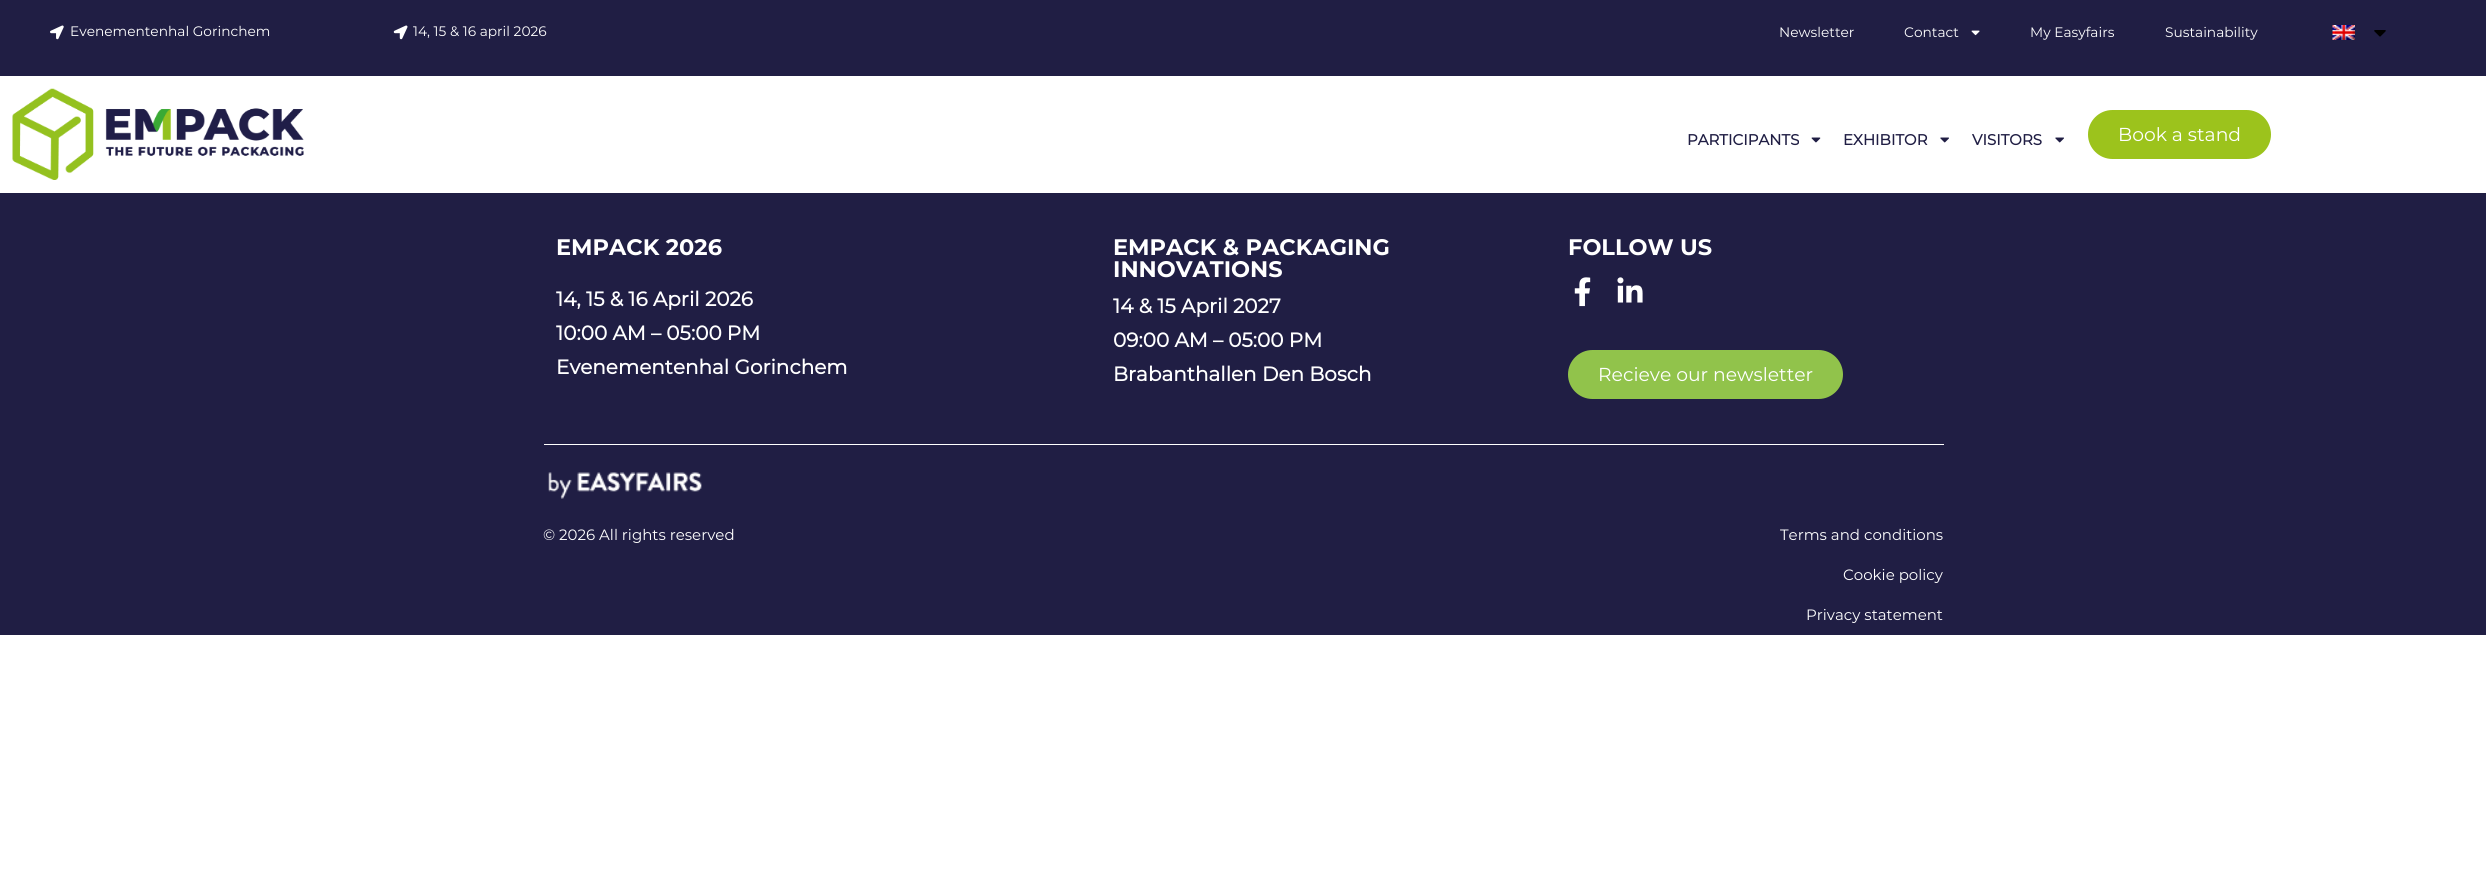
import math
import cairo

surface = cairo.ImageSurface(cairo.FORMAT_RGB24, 2486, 889)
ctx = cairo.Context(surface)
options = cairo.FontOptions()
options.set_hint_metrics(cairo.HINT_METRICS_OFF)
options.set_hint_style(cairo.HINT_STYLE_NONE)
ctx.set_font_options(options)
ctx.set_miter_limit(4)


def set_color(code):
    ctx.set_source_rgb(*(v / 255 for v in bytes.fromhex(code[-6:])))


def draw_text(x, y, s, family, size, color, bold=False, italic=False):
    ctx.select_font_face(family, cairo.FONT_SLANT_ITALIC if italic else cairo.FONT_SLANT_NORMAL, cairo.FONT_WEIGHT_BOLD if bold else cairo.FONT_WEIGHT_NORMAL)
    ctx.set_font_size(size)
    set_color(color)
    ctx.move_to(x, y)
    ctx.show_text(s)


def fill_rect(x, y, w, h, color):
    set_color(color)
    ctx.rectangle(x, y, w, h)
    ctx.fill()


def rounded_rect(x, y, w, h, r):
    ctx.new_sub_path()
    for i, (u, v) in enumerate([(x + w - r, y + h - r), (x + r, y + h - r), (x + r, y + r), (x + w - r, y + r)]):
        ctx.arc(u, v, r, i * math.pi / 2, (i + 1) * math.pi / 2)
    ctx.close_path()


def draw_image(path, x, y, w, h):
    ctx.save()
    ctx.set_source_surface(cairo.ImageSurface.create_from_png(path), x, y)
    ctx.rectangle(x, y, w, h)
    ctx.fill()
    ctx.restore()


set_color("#ffffff")
ctx.paint()
fill_rect(0, 0, 2486, 76, "#201e44")
draw_image("assets/img1.png", 50, 25, 14, 15)
draw_text(70, 36, "Evenementenhal Gorinchem", "Montserrat", 13.75, "#ffffff")
draw_image("assets/img2.png", 393, 25, 15, 15)
draw_text(413, 36, "14, 15 & 16 april 2026", "Montserrat", 13.75, "#ffffff")
draw_text(1779, 37, "Newsletter", "Montserrat", 13.75, "#ffffff")
draw_text(1904, 37, "Contact", "Montserrat", 13.75, "#ffffff")
draw_image("assets/img3.png", 1971, 30, 9, 6)
draw_text(2030, 37, "My Easyfairs", "Montserrat", 13.75, "#ffffff")
draw_text(2165, 37, "Sustainability", "Montserrat", 13.75, "#ffffff")
draw_image("assets/img4.png", 2332, 25, 23, 15)
draw_image("assets/img5.png", 2374, 30, 12, 7)
draw_image("assets/img6.png", 12, 88, 292, 92)
draw_text(1687, 145, "PARTICIPANTS", "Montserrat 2", 15, "#201e44", bold=True)
draw_image("assets/img7.png", 1811, 137, 10, 6)
draw_text(1843, 145, "EXHIBITOR", "Montserrat 2", 15, "#201e44", bold=True)
draw_image("assets/img8.png", 1940, 137, 9, 6)
draw_text(1972, 145, "VISITORS", "Montserrat 2", 15, "#201e44", bold=True)
draw_image("assets/img8.png", 2055, 137, 9, 6)
set_color("#9cc31c")
rounded_rect(2088, 110, 183, 49, 24.5)
ctx.fill()
draw_text(2118, 141, "Book a stand", "Montserrat", 18.75, "#ffffff")
fill_rect(0, 193, 2486, 442, "#201e44")
draw_text(556, 255, "EMPACK 2026", "Montserrat", 22.5, "#ffffff", bold=True)
draw_text(556, 306, "14, 15 & 16 April 2026", "Montserrat 2", 20, "#ffffff", bold=True)
draw_text(556, 340, "10:00 AM – 05:00 PM", "Montserrat 2", 20, "#ffffff", bold=True)
draw_text(556, 374, "Evenementenhal Gorinchem", "Montserrat 2", 20, "#ffffff", bold=True)
draw_text(1113, 255, "EMPACK & PACKAGING", "Montserrat", 22.5, "#ffffff", bold=True)
draw_text(1113, 277, "INNOVATIONS", "Montserrat", 22.5, "#ffffff", bold=True)
draw_text(1113, 313, "14 & 15 April 2027", "Montserrat 2", 20, "#ffffff", bold=True)
draw_text(1113, 347, "09:00 AM – 05:00 PM", "Montserrat 2", 20, "#ffffff", bold=True)
draw_text(1113, 381, "Brabanthallen Den Bosch", "Montserrat 2", 20, "#ffffff", bold=True)
draw_text(1568, 255, "FOLLOW US", "Montserrat", 22.5, "#ffffff", bold=True)
draw_image("assets/img9.png", 1574, 277, 17, 30)
draw_image("assets/img10.png", 1617, 277, 26, 26)
set_color("#91c34b")
rounded_rect(1568, 350, 275, 49, 24.5)
ctx.fill()
draw_text(1598, 381, "Recieve our newsletter", "Montserrat", 18.75, "#ffffff")
fill_rect(544, 444, 1400, 1, "#ffffff")
draw_image("assets/img11.png", 548, 472, 154, 27)
draw_text(543, 540, "© 2026 All rights reserved", "Montserrat", 15, "#ffffff")
draw_text(1780, 540, "Terms and conditions", "Montserrat", 15, "#ffffff")
draw_text(1843, 580, "Cookie policy", "Montserrat", 15, "#ffffff")
draw_text(1806, 620, "Privacy statement", "Montserrat", 15, "#ffffff")
surface.write_to_png("output.png")
